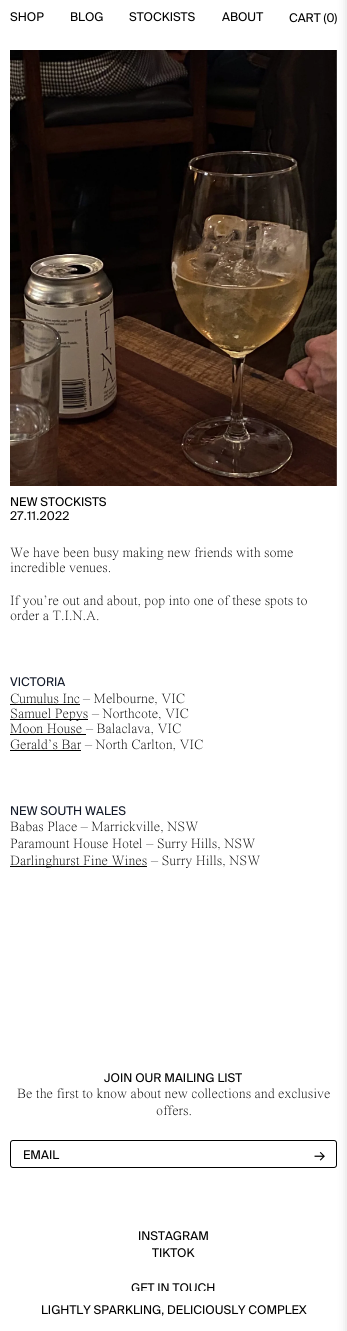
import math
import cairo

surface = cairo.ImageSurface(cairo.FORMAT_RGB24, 347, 1331)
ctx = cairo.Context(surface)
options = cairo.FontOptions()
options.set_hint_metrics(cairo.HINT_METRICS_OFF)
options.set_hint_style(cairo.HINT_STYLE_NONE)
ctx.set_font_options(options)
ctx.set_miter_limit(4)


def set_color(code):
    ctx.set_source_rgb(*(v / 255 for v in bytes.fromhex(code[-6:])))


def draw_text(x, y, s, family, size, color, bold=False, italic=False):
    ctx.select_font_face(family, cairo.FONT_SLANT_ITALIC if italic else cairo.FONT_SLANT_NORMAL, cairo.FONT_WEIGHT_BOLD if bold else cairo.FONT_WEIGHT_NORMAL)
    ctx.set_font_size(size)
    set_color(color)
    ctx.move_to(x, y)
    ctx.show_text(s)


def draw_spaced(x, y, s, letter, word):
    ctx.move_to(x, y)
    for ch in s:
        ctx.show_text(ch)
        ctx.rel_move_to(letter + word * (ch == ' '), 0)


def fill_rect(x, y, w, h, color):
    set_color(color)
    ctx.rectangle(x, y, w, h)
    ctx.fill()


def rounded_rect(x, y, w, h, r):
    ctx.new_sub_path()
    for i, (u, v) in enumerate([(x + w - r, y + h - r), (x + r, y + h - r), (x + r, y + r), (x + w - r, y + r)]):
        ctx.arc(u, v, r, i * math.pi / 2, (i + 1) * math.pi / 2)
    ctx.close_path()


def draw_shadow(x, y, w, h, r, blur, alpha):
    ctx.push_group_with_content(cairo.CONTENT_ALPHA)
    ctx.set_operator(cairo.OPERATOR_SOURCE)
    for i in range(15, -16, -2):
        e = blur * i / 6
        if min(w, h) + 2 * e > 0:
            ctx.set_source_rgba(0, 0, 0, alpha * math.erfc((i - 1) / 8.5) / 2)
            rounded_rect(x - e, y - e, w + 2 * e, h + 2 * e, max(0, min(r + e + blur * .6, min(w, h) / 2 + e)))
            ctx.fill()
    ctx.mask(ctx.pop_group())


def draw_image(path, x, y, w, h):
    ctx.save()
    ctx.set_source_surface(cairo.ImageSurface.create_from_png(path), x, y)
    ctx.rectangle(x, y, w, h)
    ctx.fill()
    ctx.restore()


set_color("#ffffff")
ctx.paint()
draw_text(10, 21, "SHOP", "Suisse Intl", 12, "#000000")
draw_text(70, 21, "BLOG", "Suisse Intl", 12, "#000000")
draw_text(129, 21, "STOCKISTS", "Suisse Intl", 12, "#000000")
draw_text(222, 21, "ABOUT", "Suisse Intl", 12, "#000000")
draw_text(289, 22, "CART (0)", "Suisse Intl", 12, "#000000")
draw_text(131, 1292, "GET IN TOUCH", "Suisse Intl", 12, "#000000")
fill_rect(133, 1291, 82, 2, "#ffffff")
draw_text(41, 1314, "LIGHTLY SPARKLING, DELICIOUSLY COMPLEX", "Suisse Intl", 12, "#000000")
draw_image("assets/img1.png", 10, 50, 327, 436)
draw_text(10, 506, "NEW STOCKISTS", "Suisse Intl", 12, "#000000")
draw_spaced(10, 520, "27.11.2022", 0.25, 0)
draw_text(10, 557, "We have been busy making new friends with some", "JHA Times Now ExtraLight", 14, "#000000")
draw_text(10, 572, "incredible venues.", "JHA Times Now ExtraLight", 14, "#000000")
draw_text(10, 605, "If you’re out and about, pop into one of these spots to", "JHA Times Now ExtraLight", 14, "#000000")
draw_text(10, 620, "order a T.I.N.A.", "JHA Times Now ExtraLight", 14, "#000000")
draw_text(10, 686, "VICTORIA", "Suisse Intl", 12, "#111827")
draw_text(10, 703, "Cumulus Inc", "JHA Times Now ExtraLight", 14, "#000000")
fill_rect(10, 704, 70, 1, "#000000")
draw_text(83, 703, "– Melbourne, VIC", "JHA Times Now ExtraLight", 14, "#000000")
fill_rect(10, 719, 78, 1, "#000000")
draw_text(10, 718, "Samuel Pepys", "JHA Times Now ExtraLight", 14, "#000000")
draw_text(92, 718, "– Northcote, VIC", "JHA Times Now ExtraLight", 14, "#000000")
draw_text(10, 733, "Moon House", "JHA Times Now ExtraLight", 14, "#000000")
fill_rect(10, 734, 76, 1, "#000000")
draw_text(86, 733, "– Balaclava, VIC", "JHA Times Now ExtraLight", 14, "#000000")
draw_text(10, 749, "Gerald’s Bar", "JHA Times Now ExtraLight", 14, "#000000")
fill_rect(10, 750, 71, 1, "#000000")
draw_text(85, 749, "– North Carlton, VIC", "JHA Times Now ExtraLight", 14, "#000000")
draw_text(10, 815, "NEW SOUTH WALES", "Suisse Intl", 12, "#111827")
draw_text(10, 831, "Babas Place – Marrickville, NSW", "JHA Times Now ExtraLight", 14, "#000000")
draw_text(10, 848, "Paramount House Hotel – Surry Hills, NSW", "JHA Times Now ExtraLight", 14, "#000000")
fill_rect(10, 866, 137, 1, "#000000")
draw_text(10, 865, "Darlinghurst Fine Wines", "JHA Times Now ExtraLight", 14, "#000000")
draw_text(151, 865, "– Surry Hills, NSW", "JHA Times Now ExtraLight", 14, "#000000")
draw_text(104, 1082, "JOIN OUR MAILING LIST", "Suisse Intl", 12, "#000000")
draw_text(17, 1098, "Be the first to know about new collections and exclusive", "JHA Times Now ExtraLight", 14, "#000000")
draw_text(156, 1115, "offers.", "JHA Times Now ExtraLight", 14, "#000000")
rounded_rect(10.5, 1140.5, 326, 27, 2.5)
ctx.set_line_width(1)
ctx.stroke()
draw_text(23, 1159, "EMAIL", "Suisse Intl", 12, "#000000")
draw_text(314, 1160, "→", "Suisse Intl", 14, "#000000")
draw_text(138, 1240, "INSTAGRAM", "Suisse Intl", 12, "#000000")
draw_text(152, 1257, "TIKTOK", "Suisse Intl", 12, "#000000")
set_color("#000000")
draw_shadow(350, -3, 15, 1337, 0, 6, 0.25)
surface.write_to_png("output.png")
